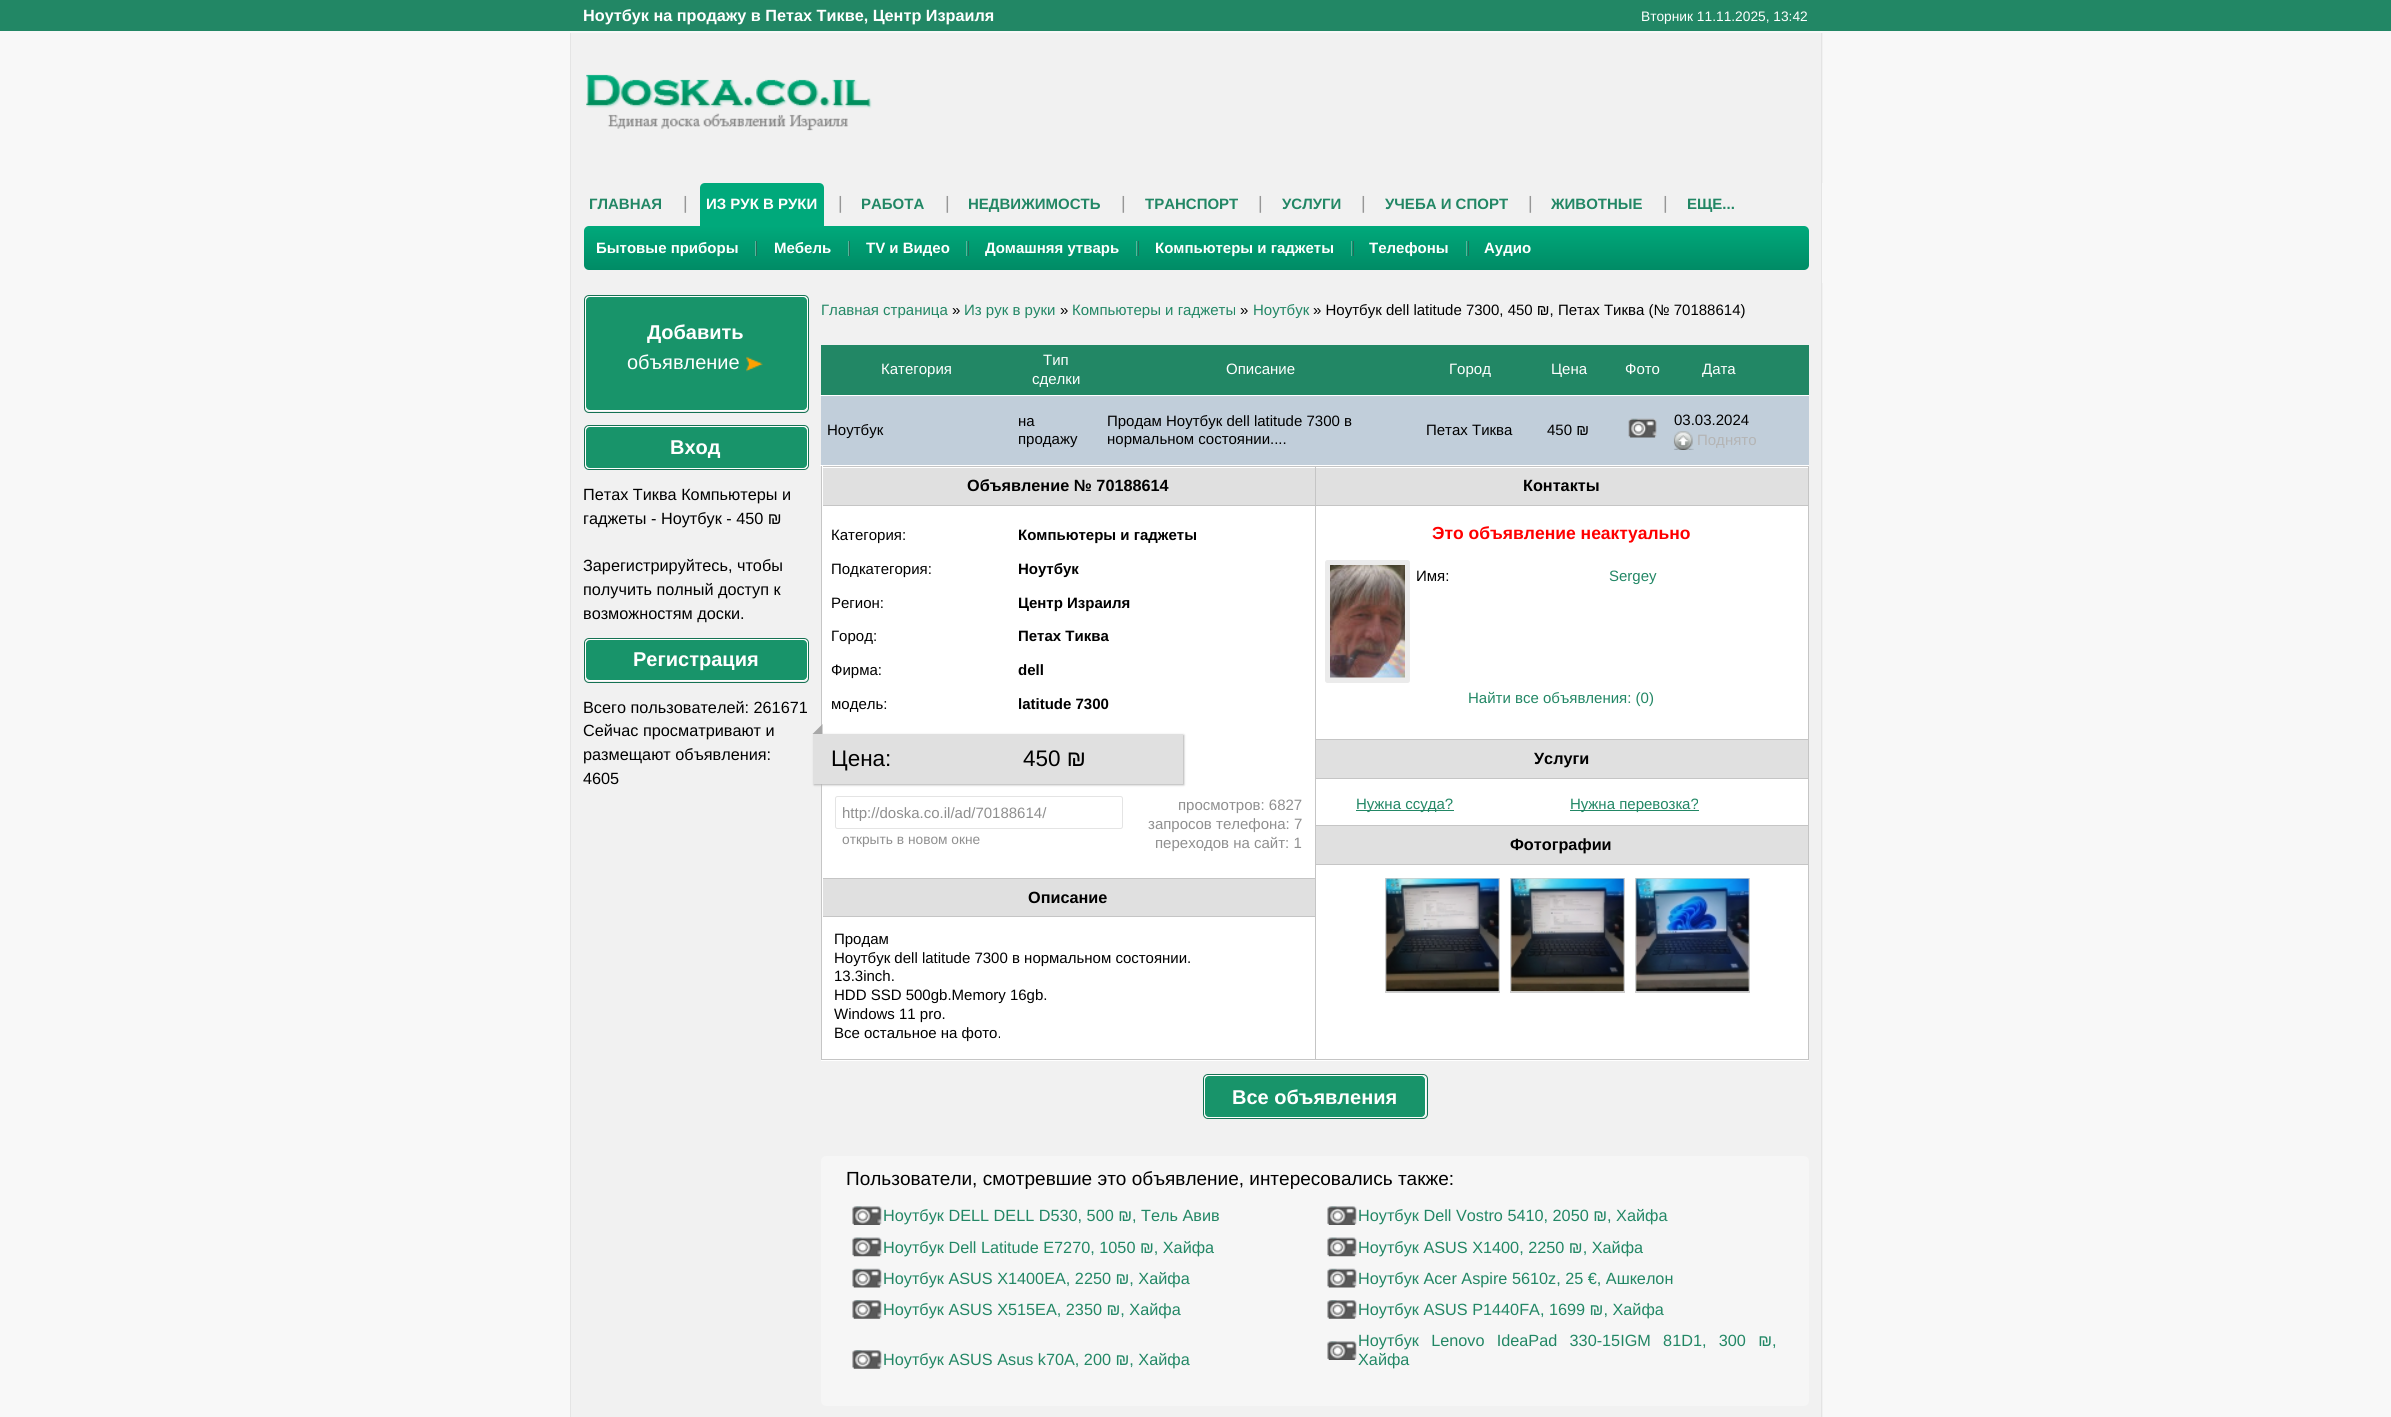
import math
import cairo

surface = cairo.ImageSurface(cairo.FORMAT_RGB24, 2391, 1417)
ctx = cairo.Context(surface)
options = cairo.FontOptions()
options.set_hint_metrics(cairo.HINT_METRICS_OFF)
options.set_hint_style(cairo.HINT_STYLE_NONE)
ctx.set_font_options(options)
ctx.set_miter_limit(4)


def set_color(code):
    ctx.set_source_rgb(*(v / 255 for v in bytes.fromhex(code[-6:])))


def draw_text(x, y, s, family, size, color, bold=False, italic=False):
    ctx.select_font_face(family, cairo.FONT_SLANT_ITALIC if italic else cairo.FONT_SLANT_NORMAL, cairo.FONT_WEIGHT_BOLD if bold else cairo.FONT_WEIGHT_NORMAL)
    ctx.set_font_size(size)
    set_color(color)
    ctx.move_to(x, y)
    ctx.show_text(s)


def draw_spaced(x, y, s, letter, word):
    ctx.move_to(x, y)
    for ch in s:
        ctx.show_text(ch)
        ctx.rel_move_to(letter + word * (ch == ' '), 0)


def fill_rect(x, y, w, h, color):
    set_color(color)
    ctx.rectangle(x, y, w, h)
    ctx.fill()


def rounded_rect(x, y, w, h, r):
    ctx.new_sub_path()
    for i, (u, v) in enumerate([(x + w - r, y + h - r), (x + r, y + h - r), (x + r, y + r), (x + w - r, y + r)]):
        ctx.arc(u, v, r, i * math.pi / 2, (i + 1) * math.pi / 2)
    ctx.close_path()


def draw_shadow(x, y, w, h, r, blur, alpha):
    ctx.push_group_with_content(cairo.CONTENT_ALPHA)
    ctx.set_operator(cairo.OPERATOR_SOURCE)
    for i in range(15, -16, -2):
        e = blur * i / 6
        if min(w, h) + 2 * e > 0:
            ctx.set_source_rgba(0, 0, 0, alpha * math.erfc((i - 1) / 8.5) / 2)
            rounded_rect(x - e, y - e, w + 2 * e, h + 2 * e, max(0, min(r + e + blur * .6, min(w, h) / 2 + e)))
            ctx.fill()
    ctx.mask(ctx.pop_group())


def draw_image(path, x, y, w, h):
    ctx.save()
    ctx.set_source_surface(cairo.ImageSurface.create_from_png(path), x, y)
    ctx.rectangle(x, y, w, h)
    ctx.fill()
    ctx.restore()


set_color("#f8f8f8")
ctx.paint()
fill_rect(0, 0, 2391, 31, "#228765")
draw_text(583, 21, "Ноутбук на продажу в Петах Тикве, Центр Израиля", "Liberation Sans", 16.25, "#ffffff", bold=True)
draw_text(1641, 21, "Вторник 11.11.2025, 13:42", "Liberation Sans", 13.75, "#ffffff")
fill_rect(571, 33, 1252, 150, "#f1f1f1")
fill_rect(1821, 33, 1, 250, "#e4e4e4")
fill_rect(570, 33, 1, 1384, "#e4e4e4")
draw_image("assets/img1.png", 586, 74, 286, 57)
fill_rect(571, 183, 1250, 100, "#f1f1f1")
draw_text(589, 209, "ГЛАВНАЯ", "Liberation Sans", 15, "#228765", bold=True)
set_color("#00a97b")
ctx.new_path()
ctx.move_to(705, 183)
ctx.line_to(819, 183)
ctx.curve_to(822, 183, 824, 185, 824, 188)
ctx.line_to(824, 226)
ctx.line_to(700, 226)
ctx.line_to(700, 188)
ctx.curve_to(700, 185, 702, 183, 705, 183)
ctx.close_path()
ctx.fill()
draw_text(683, 209, "|", "Liberation Sans", 18, "#979797")
draw_text(706, 209, "ИЗ РУК В РУКИ", "Liberation Sans", 15, "#ffffff", bold=True)
draw_text(838, 209, "|", "Liberation Sans", 18, "#979797")
draw_text(861, 209, "РАБОТА", "Liberation Sans", 15, "#228765", bold=True)
draw_text(945, 209, "|", "Liberation Sans", 18, "#979797")
draw_text(968, 209, "НЕДВИЖИМОСТЬ", "Liberation Sans", 15, "#228765", bold=True)
draw_text(1121, 209, "|", "Liberation Sans", 18, "#979797")
draw_text(1145, 209, "ТРАНСПОРТ", "Liberation Sans", 15, "#228765", bold=True)
draw_text(1258, 209, "|", "Liberation Sans", 18, "#979797")
draw_text(1282, 209, "УСЛУГИ", "Liberation Sans", 15, "#228765", bold=True)
draw_text(1361, 209, "|", "Liberation Sans", 18, "#979797")
draw_text(1385, 209, "УЧЕБА И СПОРТ", "Liberation Sans", 15, "#228765", bold=True)
draw_text(1528, 209, "|", "Liberation Sans", 18, "#979797")
draw_text(1551, 209, "ЖИВОТНЫЕ", "Liberation Sans", 15, "#228765", bold=True)
draw_text(1663, 209, "|", "Liberation Sans", 18, "#979797")
draw_text(1687, 209, "ЕЩЕ...", "Liberation Sans", 15, "#228765", bold=True)
gradient = cairo.LinearGradient(1196, 226, 1196, 270)
gradient.add_color_stop_rgba(0, 0, 0.663, 0.482, 1)
gradient.add_color_stop_rgba(1, 0, 0.545, 0.396, 1)
ctx.set_source(gradient)
rounded_rect(584, 226, 1225, 44, 5)
ctx.fill()
draw_text(596, 253, "Бытовые приборы", "Liberation Sans", 15, "#ffffff", bold=True)
fill_rect(756, 241, 1, 15, "#246d59")
fill_rect(755, 241, 1, 15, "#59b39a")
draw_text(774, 253, "Мебель", "Liberation Sans", 15, "#ffffff", bold=True)
fill_rect(849, 241, 1, 15, "#246d59")
fill_rect(848, 241, 1, 15, "#59b39a")
draw_text(866, 253, "TV и Видео", "Liberation Sans", 15, "#ffffff", bold=True)
fill_rect(968, 241, 1, 15, "#246d59")
fill_rect(966, 241, 1, 15, "#59b39a")
draw_text(985, 253, "Домашняя утварь", "Liberation Sans", 15, "#ffffff", bold=True)
fill_rect(1138, 241, 1, 15, "#246d59")
fill_rect(1136, 241, 1, 15, "#59b39a")
draw_text(1155, 253, "Компьютеры и гаджеты", "Liberation Sans", 15, "#ffffff", bold=True)
fill_rect(1353, 241, 1, 15, "#246d59")
fill_rect(1351, 241, 1, 15, "#59b39a")
draw_text(1369, 253, "Телефоны", "Liberation Sans", 15, "#ffffff", bold=True)
fill_rect(1468, 241, 1, 15, "#246d59")
fill_rect(1466, 241, 1, 15, "#59b39a")
draw_text(1484, 253, "Аудио", "Liberation Sans", 15, "#ffffff", bold=True)
fill_rect(571, 283, 1252, 1134, "#f1f1f1")
fill_rect(1821, 283, 1, 1134, "#e4e4e4")
rounded_rect(584.5, 295.5, 224, 117, 4.5)
set_color("#157253")
ctx.set_line_width(1)
ctx.stroke()
set_color("#18946a")
rounded_rect(585.5, 296.5, 222, 114, 4.5)
ctx.fill_preserve()
set_color("#ffffff")
ctx.stroke()
draw_text(647, 339, "Добавить", "Liberation Sans", 20, "#ffffff", bold=True)
draw_text(627, 369, "объявление", "Liberation Sans", 20, "#ffffff")
draw_image("assets/img2.png", 746, 356, 17, 16)
rounded_rect(584.5, 425.5, 224, 44, 4.5)
set_color("#157253")
ctx.stroke()
set_color("#18946a")
rounded_rect(585.5, 426.5, 222, 42, 4.5)
ctx.fill_preserve()
set_color("#ffffff")
ctx.stroke()
draw_text(670, 454, "Вход", "Liberation Sans", 20, "#ffffff", bold=True)
draw_text(583, 500, "Петах Тиква Компьютеры и", "Liberation Sans", 16.25, "#000000")
draw_text(583, 524, "гаджеты - Ноутбук - 450 ₪", "Liberation Sans", 16.25, "#000000")
draw_text(583, 571, "Зарегистрируйтесь, чтобы", "Liberation Sans", 16.25, "#000000")
draw_text(583, 595, "получить полный доступ к", "Liberation Sans", 16.25, "#000000")
draw_text(583, 619, "возможностям доски.", "Liberation Sans", 16.25, "#000000")
rounded_rect(584.5, 638.5, 224, 44, 4.5)
set_color("#157253")
ctx.stroke()
set_color("#18946a")
rounded_rect(585.5, 639.5, 222, 41, 4.5)
ctx.fill_preserve()
set_color("#ffffff")
ctx.stroke()
draw_text(633, 666, "Регистрация", "Liberation Sans", 20, "#ffffff", bold=True)
draw_text(583, 713, "Всего пользователей: 261671", "Liberation Sans", 16.25, "#000000")
draw_text(583, 736, "Сейчас просматривают и", "Liberation Sans", 16.25, "#000000")
draw_text(583, 760, "размещают объявления:", "Liberation Sans", 16.25, "#000000")
draw_text(583, 784, "4605", "Liberation Sans", 16.25, "#000000")
draw_text(821, 315, "Главная страница", "Liberation Sans", 15, "#228765")
draw_text(952, 315, "»", "Liberation Sans", 15, "#000000")
draw_text(964, 315, "Из рук в руки", "Liberation Sans", 15, "#228765")
draw_text(1060, 315, "»", "Liberation Sans", 15, "#000000")
draw_text(1072, 315, "Компьютеры и гаджеты", "Liberation Sans", 15, "#228765")
draw_text(1240, 315, "»", "Liberation Sans", 15, "#000000")
draw_text(1253, 315, "Ноутбук", "Liberation Sans", 15, "#228765")
draw_text(1313, 315, "» Ноутбук dell latitude 7300, 450 ₪, Петах Тиква (№ 70188614)", "Liberation Sans", 15, "#000000")
fill_rect(820, 395, 989, 1, "#ffffff")
fill_rect(821, 345, 988, 50, "#228765")
draw_text(881, 374, "Категория", "Liberation Sans", 15, "#ffffff")
draw_text(1043, 365, "Тип", "Liberation Sans", 15, "#ffffff")
draw_text(1032, 384, "сделки", "Liberation Sans", 15, "#ffffff")
draw_text(1226, 374, "Описание", "Liberation Sans", 15, "#ffffff")
draw_text(1449, 374, "Город", "Liberation Sans", 15, "#ffffff")
draw_text(1551, 374, "Цена", "Liberation Sans", 15, "#ffffff")
draw_text(1625, 374, "Фото", "Liberation Sans", 15, "#ffffff")
draw_text(1702, 374, "Дата", "Liberation Sans", 15, "#ffffff")
fill_rect(820, 465, 989, 1, "#ffffff")
fill_rect(821, 396, 988, 69, "#c1ceda")
draw_text(827, 435, "Ноутбук", "Liberation Sans", 15, "#000000")
draw_text(1018, 426, "на", "Liberation Sans", 15, "#000000")
draw_text(1018, 444, "продажу", "Liberation Sans", 15, "#000000")
draw_text(1107, 426, "Продам Ноутбук dell latitude 7300 в", "Liberation Sans", 15, "#000000")
draw_text(1107, 444, "нормальном состоянии....", "Liberation Sans", 15, "#000000")
draw_text(1426, 435, "Петах Тиква", "Liberation Sans", 15, "#000000")
draw_text(1547, 435, "450 ₪", "Liberation Sans", 15, "#000000")
draw_image("assets/img3.png", 1628, 418, 29, 20)
draw_text(1674, 425, "03.03.2024", "Liberation Sans", 15, "#000000")
draw_image("assets/img4.png", 1673, 431, 21, 19)
draw_text(1697, 445, "Поднято", "Liberation Sans", 15, "#b4b4b4")
fill_rect(821, 466, 988, 595, "#ffffff")
fill_rect(1808, 466, 1, 594, "#c5c5c5")
fill_rect(1315, 1059, 494, 1, "#c5c5c5")
fill_rect(1315, 466, 1, 594, "#c5c5c5")
fill_rect(821, 1059, 495, 1, "#c5c5c5")
fill_rect(821, 466, 1, 594, "#c5c5c5")
fill_rect(823, 468, 492, 37, "#e0e0e0")
fill_rect(823, 466, 492, 1, "#c5c5c5")
fill_rect(823, 505, 492, 1, "#c5c5c5")
draw_text(967, 491, "Объявление № 70188614", "Liberation Sans", 16.25, "#000000", bold=True)
draw_text(831, 540, "Категория:", "Liberation Sans", 15, "#000000")
draw_text(1018, 540, "Компьютеры и гаджеты", "Liberation Sans", 15, "#000000", bold=True)
draw_text(831, 574, "Подкатегория:", "Liberation Sans", 15, "#000000")
draw_text(1018, 574, "Ноутбук", "Liberation Sans", 15, "#000000", bold=True)
draw_text(831, 608, "Регион:", "Liberation Sans", 15, "#000000")
draw_text(1018, 608, "Центр Израиля", "Liberation Sans", 15, "#000000", bold=True)
draw_text(831, 641, "Город:", "Liberation Sans", 15, "#000000")
draw_text(1018, 641, "Петах Тиква", "Liberation Sans", 15, "#000000", bold=True)
draw_text(831, 675, "Фирма:", "Liberation Sans", 15, "#000000")
draw_text(1018, 675, "dell", "Liberation Sans", 15, "#000000", bold=True)
draw_text(831, 709, "модель:", "Liberation Sans", 15, "#000000")
draw_text(1018, 709, "latitude 7300", "Liberation Sans", 15, "#000000", bold=True)
set_color("#b3b3b3")
draw_shadow(814, 735, 370, 50, 0, 1, 1)
fill_rect(813, 734, 370, 50, "#e0e0e0")
set_color("#a7a7a7")
ctx.new_path()
ctx.move_to(822.5, 734)
ctx.line_to(812.5, 734)
ctx.line_to(822.5, 724)
ctx.close_path()
ctx.fill()
draw_text(831, 766, "Цена:", "Liberation Sans", 22.5, "#000000")
draw_text(1023, 766, "450 ₪", "Liberation Sans", 22.5, "#000000")
rounded_rect(835.5, 796.5, 287, 32, 2)
set_color("#e4e4e4")
ctx.stroke()
ctx.save()
ctx.rectangle(843, 804, 272, 17)
ctx.clip()
draw_text(842, 818, "http://doska.co.il/ad/70188614/", "Liberation Sans", 15, "#8f8f8f")
ctx.restore()
draw_text(842, 844, "открыть в новом окне", "Liberation Sans", 13.75, "#8f8f8f")
draw_text(1178, 810, "просмотров: 6827", "Liberation Sans", 15, "#8f8f8f")
draw_text(1148, 829, "запросов телефона: 7", "Liberation Sans", 15, "#8f8f8f")
draw_text(1155, 848, "переходов на сайт: 1", "Liberation Sans", 15, "#8f8f8f")
fill_rect(823, 879, 492, 37, "#e0e0e0")
fill_rect(823, 878, 492, 1, "#c5c5c5")
fill_rect(823, 916, 492, 1, "#c5c5c5")
draw_text(1028, 903, "Описание", "Liberation Sans", 16.25, "#000000", bold=True)
draw_text(834, 944, "Продам", "Liberation Sans", 15, "#000000")
draw_text(834, 963, "Ноутбук dell latitude 7300 в нормальном состоянии.", "Liberation Sans", 15, "#000000")
draw_text(834, 981, "13.3inch.", "Liberation Sans", 15, "#000000")
draw_text(834, 1000, "HDD SSD 500gb.Memory 16gb.", "Liberation Sans", 15, "#000000")
draw_text(834, 1019, "Windows 11 pro.", "Liberation Sans", 15, "#000000")
draw_text(834, 1038, "Все остальное на фото.", "Liberation Sans", 15, "#000000")
fill_rect(1316, 468, 492, 37, "#e0e0e0")
fill_rect(1316, 466, 492, 1, "#c5c5c5")
fill_rect(1316, 505, 492, 1, "#c5c5c5")
draw_text(1523, 491, "Контакты", "Liberation Sans", 16.25, "#000000", bold=True)
draw_text(1432, 539, "Это объявление неактуально", "Liberation Sans", 17.5, "#ff0000", bold=True)
set_color("#ebebeb")
rounded_rect(1325, 560, 85, 123, 2.5)
ctx.fill()
draw_image("assets/img5.png", 1330, 565, 75, 113)
draw_text(1416, 581, "Имя:", "Liberation Sans", 15, "#000000")
draw_text(1609, 581, "Sergey", "Liberation Sans", 15, "#228765")
draw_text(1468, 703, "Найти все объявления: (0)", "Liberation Sans", 15, "#228765")
fill_rect(1316, 740, 492, 38, "#e0e0e0")
fill_rect(1316, 739, 492, 1, "#c5c5c5")
fill_rect(1316, 778, 492, 1, "#c5c5c5")
draw_text(1534, 764, "Услуги", "Liberation Sans", 16.25, "#000000", bold=True)
fill_rect(1356, 810, 98, 1, "#228765")
draw_text(1356, 809, "Нужна ссуда?", "Liberation Sans", 15, "#228765")
fill_rect(1570, 810, 129, 1, "#228765")
draw_text(1570, 809, "Нужна перевозка?", "Liberation Sans", 15, "#228765")
fill_rect(1316, 826, 492, 38, "#e0e0e0")
fill_rect(1316, 825, 492, 1, "#c5c5c5")
fill_rect(1316, 864, 492, 1, "#c5c5c5")
draw_text(1510, 850, "Фотографии", "Liberation Sans", 16.25, "#000000", bold=True)
ctx.rectangle(1385.5, 878.5, 114, 114)
set_color("#cccccc")
ctx.stroke()
draw_image("assets/img6.png", 1386, 878, 113, 114)
ctx.rectangle(1510.5, 878.5, 114, 114)
ctx.stroke()
draw_image("assets/img7.png", 1511, 878, 113, 114)
ctx.rectangle(1635.5, 878.5, 114, 114)
ctx.stroke()
draw_image("assets/img8.png", 1636, 878, 113, 114)
rounded_rect(1203.5, 1074.5, 224, 44, 4.5)
set_color("#157253")
ctx.stroke()
set_color("#18946a")
rounded_rect(1204.5, 1075.5, 221, 42, 4.5)
ctx.fill_preserve()
set_color("#ffffff")
ctx.stroke()
draw_text(1232, 1104, "Все объявления", "Liberation Sans", 20, "#ffffff", bold=True)
set_color("#f6f6f6")
rounded_rect(821, 1156, 988, 250, 5)
ctx.fill()
draw_text(846, 1185, "Пользователи, смотревшие это объявление, интересовались также:", "Liberation Sans", 19, "#000000")
draw_image("assets/img9.png", 852, 1206, 30, 19)
draw_text(883, 1221, "Ноутбук DELL DELL D530, 500 ₪, Тель Авив", "Liberation Sans", 16.25, "#228765")
draw_image("assets/img9.png", 1327, 1206, 30, 19)
draw_text(1358, 1221, "Ноутбук Dell Vostro 5410, 2050 ₪, Хайфа", "Liberation Sans", 16.25, "#228765")
draw_image("assets/img10.png", 852, 1237, 30, 20)
draw_text(883, 1253, "Ноутбук Dell Latitude E7270, 1050 ₪, Хайфа", "Liberation Sans", 16.25, "#228765")
draw_image("assets/img10.png", 1327, 1237, 30, 20)
draw_text(1358, 1253, "Ноутбук ASUS X1400, 2250 ₪, Хайфа", "Liberation Sans", 16.25, "#228765")
draw_image("assets/img11.png", 852, 1268, 30, 20)
draw_text(883, 1284, "Ноутбук ASUS X1400EА, 2250 ₪, Хайфа", "Liberation Sans", 16.25, "#228765")
draw_image("assets/img11.png", 1327, 1268, 30, 20)
draw_text(1358, 1284, "Ноутбук Acer Aspire 5610z, 25 €, Ашкелон", "Liberation Sans", 16.25, "#228765")
draw_image("assets/img12.png", 852, 1300, 30, 19)
draw_text(883, 1315, "Ноутбук ASUS X515EA, 2350 ₪, Хайфа", "Liberation Sans", 16.25, "#228765")
draw_image("assets/img12.png", 1327, 1300, 30, 19)
draw_text(1358, 1315, "Ноутбук ASUS P1440FA, 1699 ₪, Хайфа", "Liberation Sans", 16.25, "#228765")
draw_image("assets/img12.png", 852, 1350, 30, 19)
draw_text(883, 1365, "Ноутбук ASUS Asus k70A, 200 ₪, Хайфа", "Liberation Sans", 16.25, "#228765")
draw_image("assets/img9.png", 1327, 1341, 30, 19)
draw_spaced(1358, 1346, "Ноутбук Lenovo IdeaPad 330-15IGM 81D1, 300 ₪,", 0, 7.75)
draw_text(1358, 1365, "Хайфа", "Liberation Sans", 16.25, "#228765")
surface.write_to_png("output.png")
